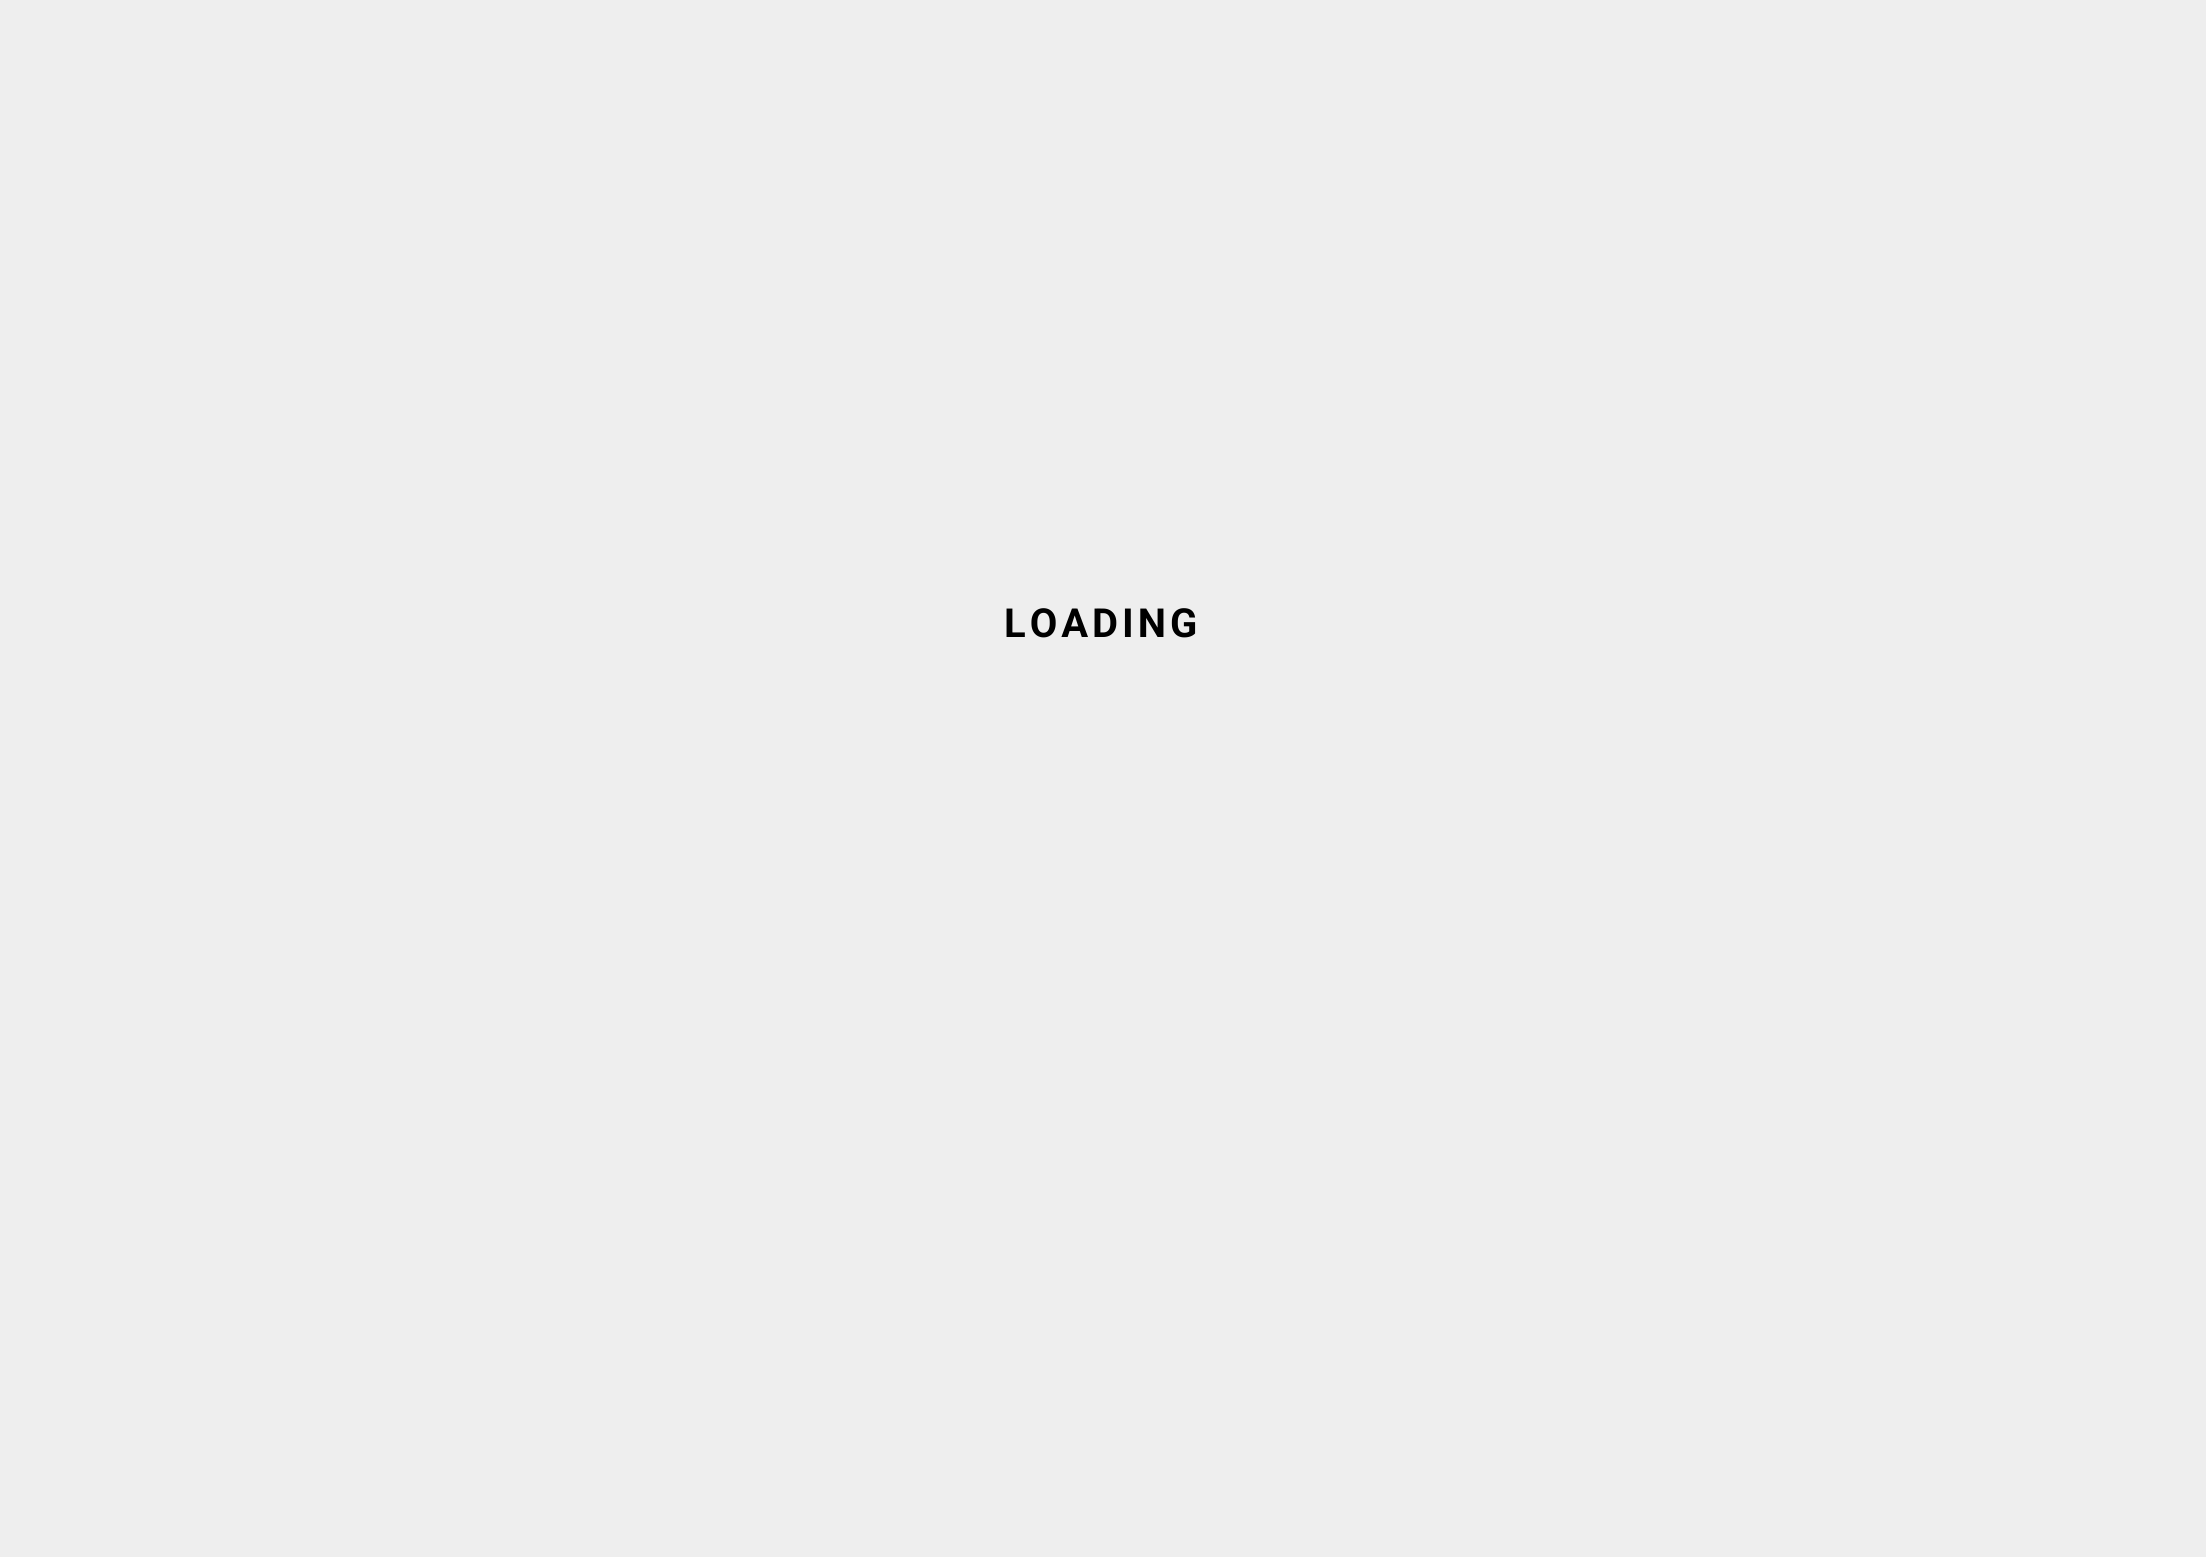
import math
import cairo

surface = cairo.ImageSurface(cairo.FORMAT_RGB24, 2206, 1557)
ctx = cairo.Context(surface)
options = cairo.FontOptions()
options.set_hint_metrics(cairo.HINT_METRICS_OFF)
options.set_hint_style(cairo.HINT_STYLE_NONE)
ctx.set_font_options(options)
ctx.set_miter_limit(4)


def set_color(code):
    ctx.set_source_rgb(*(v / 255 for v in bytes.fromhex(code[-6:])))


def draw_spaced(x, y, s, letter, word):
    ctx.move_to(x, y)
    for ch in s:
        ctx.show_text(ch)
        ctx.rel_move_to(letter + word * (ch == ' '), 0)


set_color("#eeeeee")
ctx.paint()
ctx.select_font_face("Roboto", cairo.FONT_SLANT_NORMAL, cairo.FONT_WEIGHT_BOLD)
ctx.set_font_size(40)
set_color("#000000")
draw_spaced(1004, 637, "LOADING", 4, 0)
surface.write_to_png("output.png")
